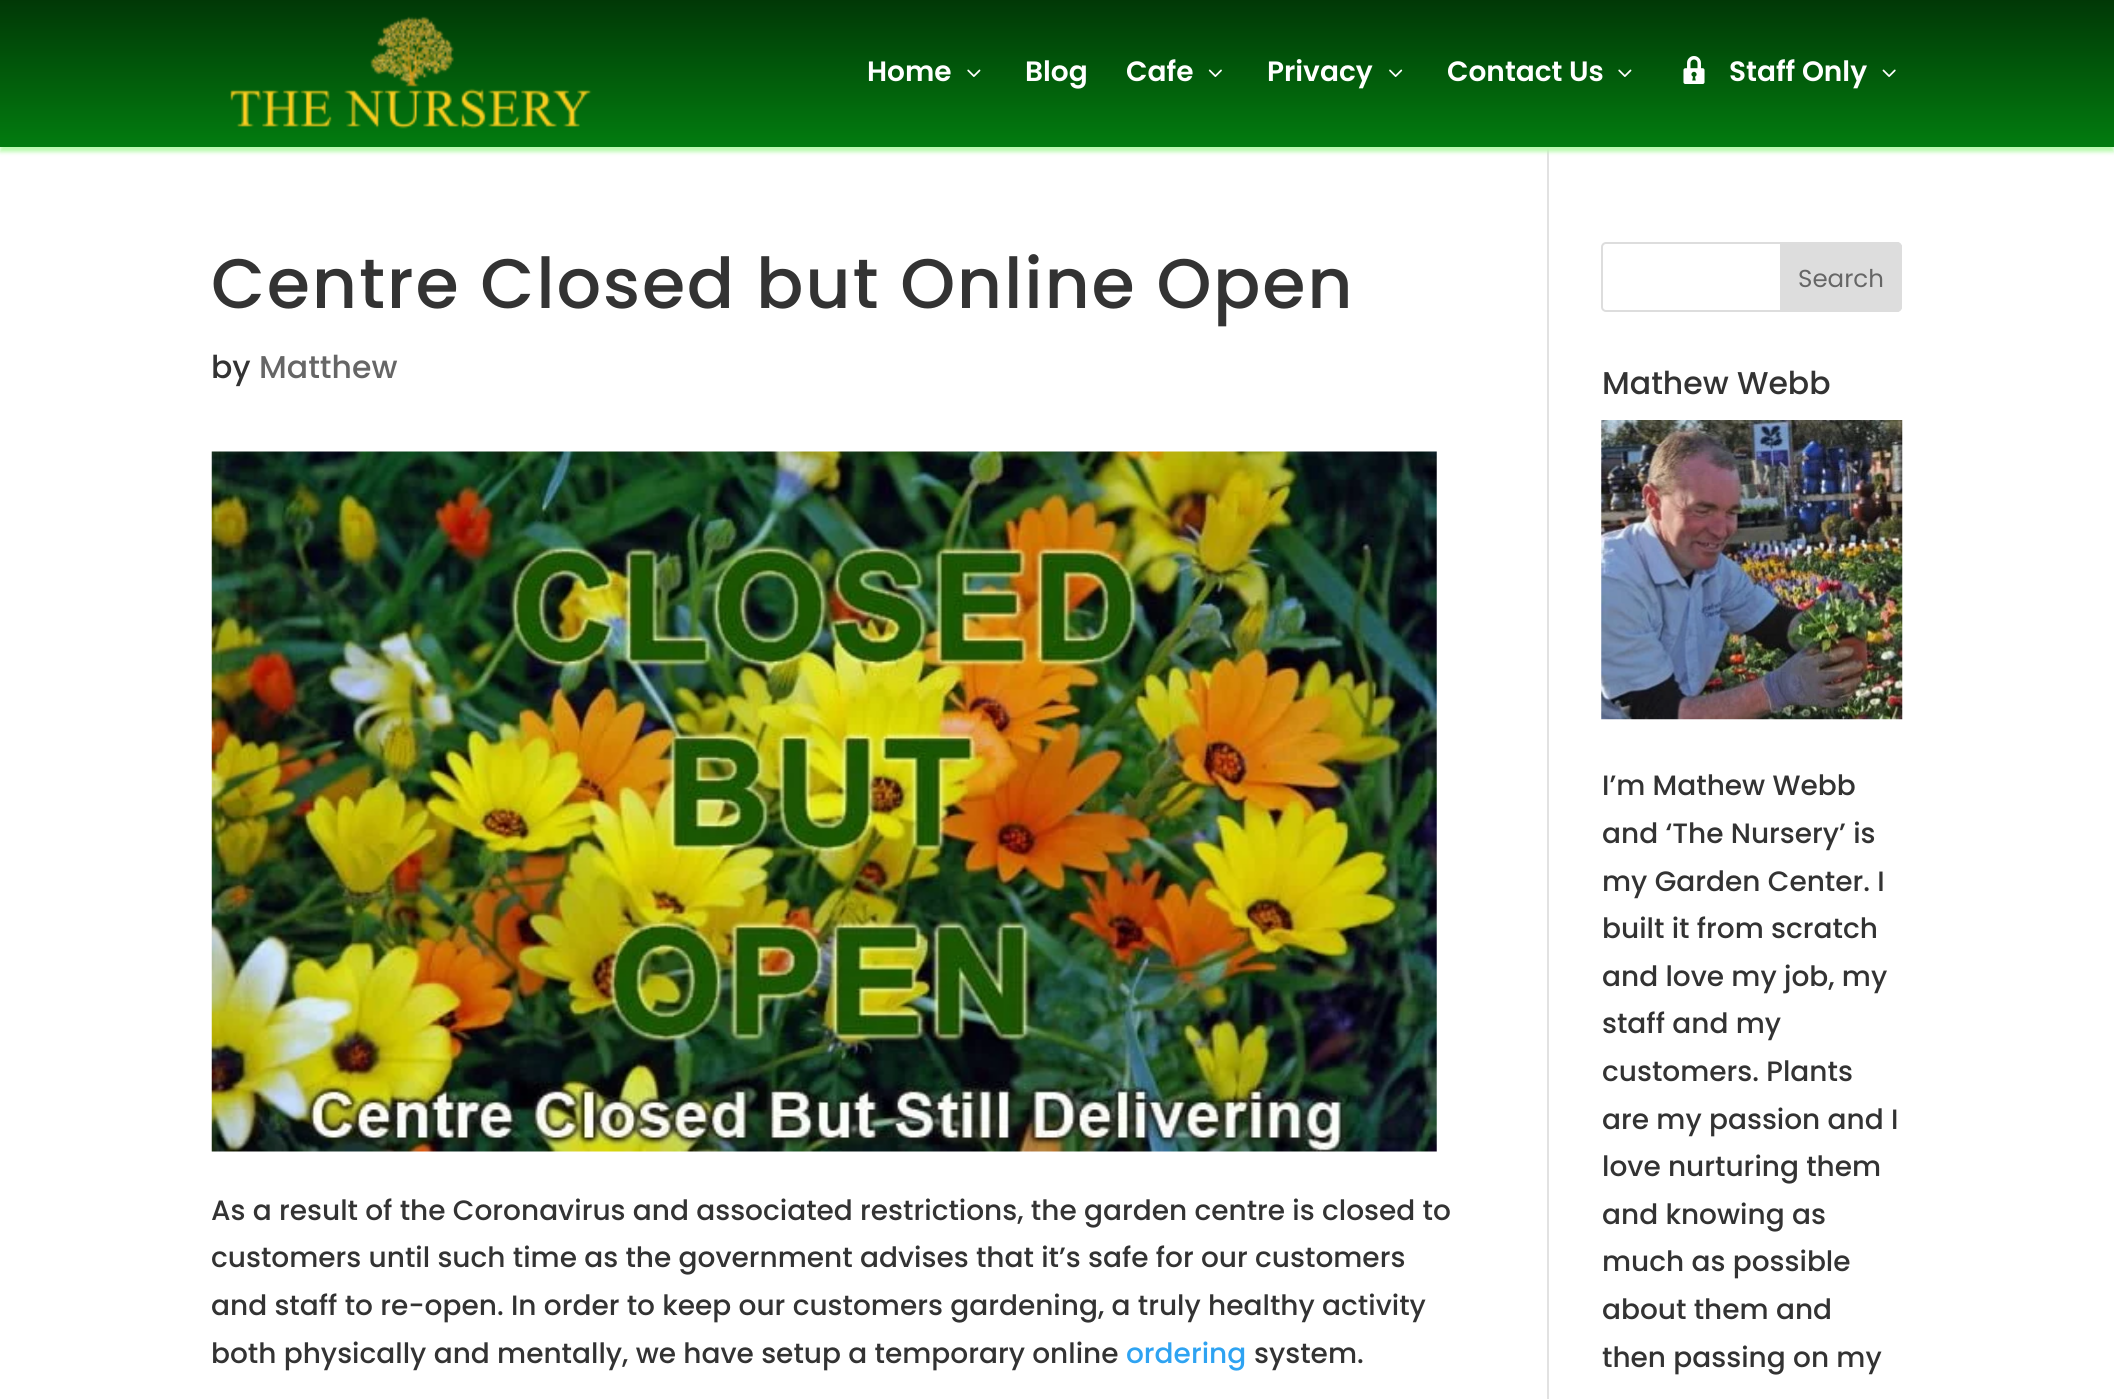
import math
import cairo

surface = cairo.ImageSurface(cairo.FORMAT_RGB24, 2114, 1399)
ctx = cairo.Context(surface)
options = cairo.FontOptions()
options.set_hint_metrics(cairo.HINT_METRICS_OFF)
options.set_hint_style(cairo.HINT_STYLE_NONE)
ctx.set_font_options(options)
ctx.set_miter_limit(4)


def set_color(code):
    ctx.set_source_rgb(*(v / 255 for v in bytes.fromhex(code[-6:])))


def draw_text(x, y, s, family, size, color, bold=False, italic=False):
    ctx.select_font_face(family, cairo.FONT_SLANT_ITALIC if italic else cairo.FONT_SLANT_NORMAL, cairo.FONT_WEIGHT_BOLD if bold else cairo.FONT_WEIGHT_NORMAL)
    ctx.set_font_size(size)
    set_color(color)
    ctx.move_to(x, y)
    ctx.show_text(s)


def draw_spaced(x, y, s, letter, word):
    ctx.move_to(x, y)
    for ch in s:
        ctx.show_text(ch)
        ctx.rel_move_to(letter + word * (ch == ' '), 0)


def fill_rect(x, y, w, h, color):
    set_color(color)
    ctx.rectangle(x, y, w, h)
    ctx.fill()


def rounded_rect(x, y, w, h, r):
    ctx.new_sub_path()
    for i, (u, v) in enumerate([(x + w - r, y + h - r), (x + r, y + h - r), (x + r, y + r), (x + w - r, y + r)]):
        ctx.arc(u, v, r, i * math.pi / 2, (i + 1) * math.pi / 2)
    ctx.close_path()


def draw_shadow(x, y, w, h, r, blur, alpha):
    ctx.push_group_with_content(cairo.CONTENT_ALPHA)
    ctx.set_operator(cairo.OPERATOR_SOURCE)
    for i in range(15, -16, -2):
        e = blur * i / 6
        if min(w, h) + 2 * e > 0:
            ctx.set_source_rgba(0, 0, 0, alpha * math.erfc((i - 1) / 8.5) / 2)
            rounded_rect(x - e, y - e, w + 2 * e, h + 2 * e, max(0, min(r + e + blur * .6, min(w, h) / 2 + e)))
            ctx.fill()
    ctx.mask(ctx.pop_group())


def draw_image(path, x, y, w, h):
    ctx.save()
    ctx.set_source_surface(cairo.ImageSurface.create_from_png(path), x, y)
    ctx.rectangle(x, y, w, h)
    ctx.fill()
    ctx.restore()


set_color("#ffffff")
ctx.paint()
fill_rect(1547, 140, 2, 1259, "#e2e2e2")
set_color("#bbfab1")
draw_shadow(0, 5, 2114, 147, 0, 2, 1)
gradient = cairo.LinearGradient(1057, 0, 1057, 147)
gradient.add_color_stop_rgba(0, 0.008, 0, 0.141, 1)
gradient.add_color_stop_rgba(0, 0.004, 0.22, 0.024, 1)
gradient.add_color_stop_rgba(1, 0.008, 0.486, 0.059, 1)
ctx.set_source(gradient)
ctx.rectangle(0, 0, 2114, 147)
ctx.fill()
draw_image("assets/img1.png", 230, 16, 362, 113)
draw_text(867, 81, "Home", "Poppins SemiBold", 28, "#ffffff")
draw_image("assets/img2.png", 967, 69, 14, 8)
draw_text(1025, 81, "Blog", "Poppins SemiBold", 28, "#ffffff")
draw_text(1126, 81, "Cafe", "Poppins SemiBold", 28, "#ffffff")
draw_image("assets/img3.png", 1208, 69, 14, 8)
draw_text(1267, 81, "Privacy", "Poppins SemiBold", 28, "#ffffff")
draw_image("assets/img4.png", 1389, 69, 14, 8)
draw_text(1447, 81, "Contact Us", "Poppins SemiBold", 28, "#ffffff")
draw_image("assets/img2.png", 1618, 69, 14, 8)
draw_image("assets/img5.png", 1683, 56, 22, 28)
draw_text(1729, 81, "Staff Only", "Poppins SemiBold", 28, "#ffffff")
draw_image("assets/img6.png", 1882, 69, 14, 8)
ctx.select_font_face("Poppins Medium")
ctx.set_font_size(70)
set_color("#333333")
draw_spaced(211, 308, "Centre Closed but Online Open", 1.75, 0)
draw_text(211, 378, "by", "Poppins Medium", 31.5, "#333333")
draw_text(259, 378, "Matthew", "Poppins Medium", 31.5, "#666666")
draw_image("assets/img7.png", 211, 451, 1226, 701)
draw_text(211, 1220, "As a result of the Coronavirus and associated restrictions, the garden centre is closed to", "Poppins Medium", 28, "#333333")
draw_text(211, 1267, "customers until such time as the government advises that it’s safe for our customers", "Poppins Medium", 28, "#333333")
draw_text(211, 1315, "and staff to re-open. In order to keep our customers gardening, a truly healthy activity", "Poppins Medium", 28, "#333333")
draw_text(211, 1363, "both physically and mentally, we have setup a temporary online", "Poppins Medium", 28, "#333333")
draw_text(1126, 1363, "ordering", "Poppins Medium", 28, "#2ea3f2")
draw_text(1254, 1363, "system.", "Poppins Medium", 28, "#333333")
rounded_rect(1602, 243, 299, 68, 4)
set_color("#dddddd")
ctx.stroke()
ctx.new_path()
ctx.move_to(1781, 243)
ctx.line_to(1897, 243)
ctx.curve_to(1899, 243, 1901, 245, 1901, 247)
ctx.line_to(1901, 307)
ctx.curve_to(1901, 309, 1899, 311, 1897, 311)
ctx.line_to(1781, 311)
ctx.close_path()
ctx.fill_preserve()
ctx.stroke()
draw_text(1798, 287, "Search", "Poppins", 24.5, "#666666")
draw_text(1602, 394, "Mathew Webb", "Poppins Medium", 31.5, "#333333")
draw_image("assets/img8.png", 1601, 420, 302, 300)
draw_text(1602, 795, "I’m Mathew Webb", "Poppins Medium", 28, "#333333")
draw_text(1602, 843, "and ‘The Nursery’ is", "Poppins Medium", 28, "#333333")
draw_text(1602, 891, "my Garden Center. I", "Poppins Medium", 28, "#333333")
draw_text(1602, 938, "built it from scratch", "Poppins Medium", 28, "#333333")
draw_text(1602, 986, "and love my job, my", "Poppins Medium", 28, "#333333")
draw_text(1602, 1033, "staff and my", "Poppins Medium", 28, "#333333")
draw_text(1602, 1081, "customers. Plants", "Poppins Medium", 28, "#333333")
draw_text(1602, 1129, "are my passion and I", "Poppins Medium", 28, "#333333")
draw_text(1602, 1176, "love nurturing them", "Poppins Medium", 28, "#333333")
draw_text(1602, 1224, "and knowing as", "Poppins Medium", 28, "#333333")
draw_text(1602, 1271, "much as possible", "Poppins Medium", 28, "#333333")
draw_text(1602, 1319, "about them and", "Poppins Medium", 28, "#333333")
draw_text(1602, 1367, "then passing on my", "Poppins Medium", 28, "#333333")
surface.write_to_png("output.png")
